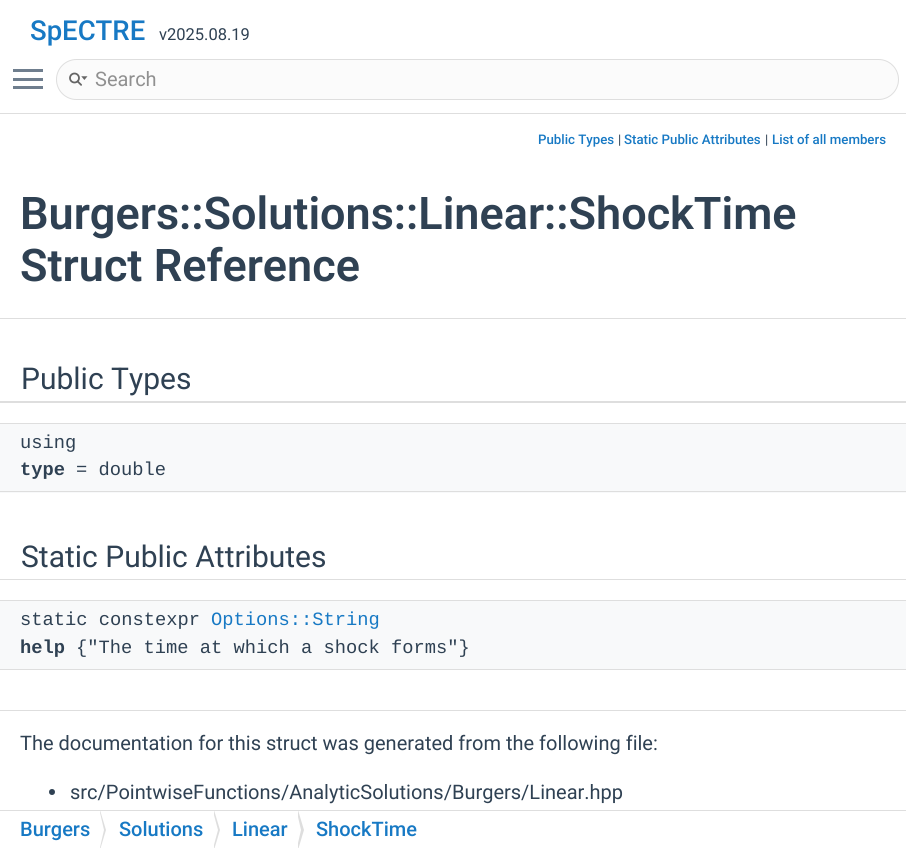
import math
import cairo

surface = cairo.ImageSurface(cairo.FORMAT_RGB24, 906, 848)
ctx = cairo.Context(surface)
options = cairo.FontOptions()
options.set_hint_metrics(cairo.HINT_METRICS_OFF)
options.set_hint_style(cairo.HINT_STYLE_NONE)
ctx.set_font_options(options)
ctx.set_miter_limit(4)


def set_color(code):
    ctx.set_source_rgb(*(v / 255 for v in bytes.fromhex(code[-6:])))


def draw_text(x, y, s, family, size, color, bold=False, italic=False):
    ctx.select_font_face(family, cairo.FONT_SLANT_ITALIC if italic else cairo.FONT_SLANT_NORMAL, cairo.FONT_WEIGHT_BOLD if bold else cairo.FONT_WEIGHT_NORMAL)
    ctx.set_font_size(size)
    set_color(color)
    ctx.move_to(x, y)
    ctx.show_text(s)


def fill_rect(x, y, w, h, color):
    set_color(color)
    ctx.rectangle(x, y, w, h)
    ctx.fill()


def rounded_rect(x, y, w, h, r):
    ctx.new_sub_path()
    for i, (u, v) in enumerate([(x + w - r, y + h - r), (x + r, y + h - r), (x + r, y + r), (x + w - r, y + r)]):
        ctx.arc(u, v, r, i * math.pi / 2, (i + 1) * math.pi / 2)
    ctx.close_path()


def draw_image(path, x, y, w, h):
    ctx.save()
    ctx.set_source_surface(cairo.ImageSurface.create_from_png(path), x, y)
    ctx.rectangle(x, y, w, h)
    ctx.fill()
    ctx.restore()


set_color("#ffffff")
ctx.paint()
fill_rect(0, 113, 906, 1, "#dedede")
draw_text(30, 40, "SpECTRE", "Roboto Medium", 27.5, "#1779c4")
draw_text(159, 40, "v2025.08.19", "Roboto", 16.5, "#2f4153")
fill_rect(13, 78, 30, 3, "#6f7e8e")
fill_rect(13, 69, 30, 3, "#6f7e8e")
fill_rect(13, 86, 30, 3, "#6f7e8e")
set_color("#fbfbfb")
rounded_rect(56.5, 59.5, 842, 40, 20)
ctx.fill_preserve()
set_color("#dedede")
ctx.set_line_width(1)
ctx.stroke()
draw_image("assets/img1.png", 69, 72, 19, 14)
draw_text(95, 86, "Search", "Roboto", 20, "#909090")
fill_rect(0, 318, 906, 1, "#dedede")
draw_text(538, 144, "Public Types", "Roboto Medium", 13.25, "#1779c4")
draw_text(618, 144, "|", "Roboto", 13.25, "#2f4153")
draw_text(624, 144, "Static Public Attributes", "Roboto Medium", 13.25, "#1779c4")
draw_text(765, 144, "|", "Roboto", 13.25, "#2f4153")
draw_text(772, 144, "List of all members", "Roboto Medium", 13.25, "#1779c4")
draw_text(20, 229, "Burgers::Solutions::Linear::ShockTime", "Roboto SemiBold", 45, "#2f4153")
draw_text(20, 281, "Struct Reference", "Roboto SemiBold", 45, "#2f4153")
set_color("#dedede")
ctx.new_path()
ctx.move_to(-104, 353)
ctx.line_to(-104, 403)
ctx.line_to(760, 403)
ctx.line_to(760, 401)
ctx.line_to(21, 401)
ctx.line_to(21, 353)
ctx.close_path()
ctx.fill()
ctx.new_path()
ctx.move_to(146, 401)
ctx.line_to(146, 403)
ctx.line_to(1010, 403)
ctx.line_to(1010, 353)
ctx.line_to(885, 353)
ctx.line_to(885, 401)
ctx.close_path()
ctx.fill()
set_color("#ffffff")
ctx.new_path()
ctx.move_to(-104, 351)
ctx.line_to(-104, 401)
ctx.line_to(21, 401)
ctx.line_to(21, 351)
ctx.line_to(760, 351)
ctx.close_path()
ctx.fill()
ctx.new_path()
ctx.move_to(146, 351)
ctx.line_to(885, 351)
ctx.line_to(885, 401)
ctx.line_to(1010, 401)
ctx.line_to(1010, 351)
ctx.close_path()
ctx.fill()
draw_text(21, 389, "Public Types", "Roboto", 30, "#2f4153")
fill_rect(0, 424, 906, 69, "#f8f9fa")
fill_rect(0, 423, 906, 1, "#dedede")
draw_text(20, 448, "using", "Liberation Mono", 18.75, "#2f4153")
fill_rect(0, 491, 906, 1, "#dedede")
draw_text(20, 475, "type", "Liberation Mono", 18.75, "#2f4153", bold=True)
draw_text(76, 475, "= double", "Liberation Mono", 18.75, "#2f4153")
set_color("#dedede")
ctx.new_path()
ctx.move_to(-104, 530)
ctx.line_to(-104, 580)
ctx.line_to(760, 580)
ctx.line_to(760, 579)
ctx.line_to(21, 579)
ctx.line_to(21, 530)
ctx.close_path()
ctx.fill()
ctx.new_path()
ctx.move_to(146, 579)
ctx.line_to(146, 580)
ctx.line_to(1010, 580)
ctx.line_to(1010, 530)
ctx.line_to(885, 530)
ctx.line_to(885, 579)
ctx.close_path()
ctx.fill()
set_color("#ffffff")
ctx.new_path()
ctx.move_to(-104, 529)
ctx.line_to(-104, 579)
ctx.line_to(760, 579)
ctx.line_to(21, 579)
ctx.line_to(21, 529)
ctx.close_path()
ctx.fill()
ctx.new_path()
ctx.move_to(146, 579)
ctx.line_to(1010, 579)
ctx.line_to(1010, 529)
ctx.line_to(885, 529)
ctx.line_to(885, 579)
ctx.close_path()
ctx.fill()
draw_text(21, 567, "Static Public Attributes", "Roboto", 30, "#2f4153")
fill_rect(0, 601, 906, 68, "#f8f9fa")
fill_rect(0, 600, 906, 1, "#dedede")
draw_text(20, 625, "static constexpr", "Liberation Mono", 18.75, "#2f4153")
draw_text(211, 625, "Options::String", "Liberation Mono", 18.75, "#1779c4")
fill_rect(0, 669, 906, 1, "#dedede")
draw_text(20, 653, "help", "Liberation Mono", 18.75, "#2f4153", bold=True)
draw_text(76, 653, "{\"The time at which a shock forms\"}", "Liberation Mono", 18.75, "#2f4153")
fill_rect(0, 710, 20, 1, "#dedede")
fill_rect(20, 710, 886, 1, "#dedede")
draw_text(20, 750, "The documentation for this struct was generated from the following file:", "Roboto", 20, "#2f4153")
ctx.new_path()
ctx.arc(52, 792, 3, 0, 2 * math.pi)
ctx.fill()
draw_text(70, 799, "src/PointwiseFunctions/AnalyticSolutions/Burgers/Linear.hpp", "Roboto", 20, "#2f4153")
fill_rect(0, 810, 906, 1, "#dedede")
draw_text(20, 836, "Burgers", "Roboto Medium", 20, "#1779c4")
set_color("#dedede")
ctx.new_path()
ctx.move_to(100, 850)
ctx.line_to(100, 810)
ctx.line_to(106, 830)
ctx.close_path()
ctx.fill()
ctx.save()
ctx.rectangle(0, 811, 906, 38)
ctx.clip()
set_color("#ffffff")
ctx.new_path()
ctx.move_to(98, 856)
ctx.line_to(98, 804)
ctx.line_to(104, 830)
ctx.close_path()
ctx.fill()
ctx.restore()
draw_text(119, 836, "Solutions", "Roboto Medium", 20, "#1779c4")
set_color("#dedede")
ctx.new_path()
ctx.move_to(214, 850)
ctx.line_to(214, 810)
ctx.line_to(220, 830)
ctx.close_path()
ctx.fill()
ctx.save()
ctx.rectangle(0, 811, 906, 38)
ctx.clip()
set_color("#ffffff")
ctx.new_path()
ctx.move_to(211, 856)
ctx.line_to(211, 804)
ctx.line_to(218, 830)
ctx.close_path()
ctx.fill()
ctx.restore()
draw_text(232, 836, "Linear", "Roboto Medium", 20, "#1779c4")
set_color("#dedede")
ctx.new_path()
ctx.move_to(298, 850)
ctx.line_to(298, 810)
ctx.line_to(304, 830)
ctx.close_path()
ctx.fill()
ctx.save()
ctx.rectangle(0, 811, 906, 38)
ctx.clip()
set_color("#ffffff")
ctx.new_path()
ctx.move_to(295, 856)
ctx.line_to(295, 804)
ctx.line_to(301, 830)
ctx.close_path()
ctx.fill()
ctx.restore()
draw_text(316, 836, "ShockTime", "Roboto Medium", 20, "#1779c4")
surface.write_to_png("output.png")
